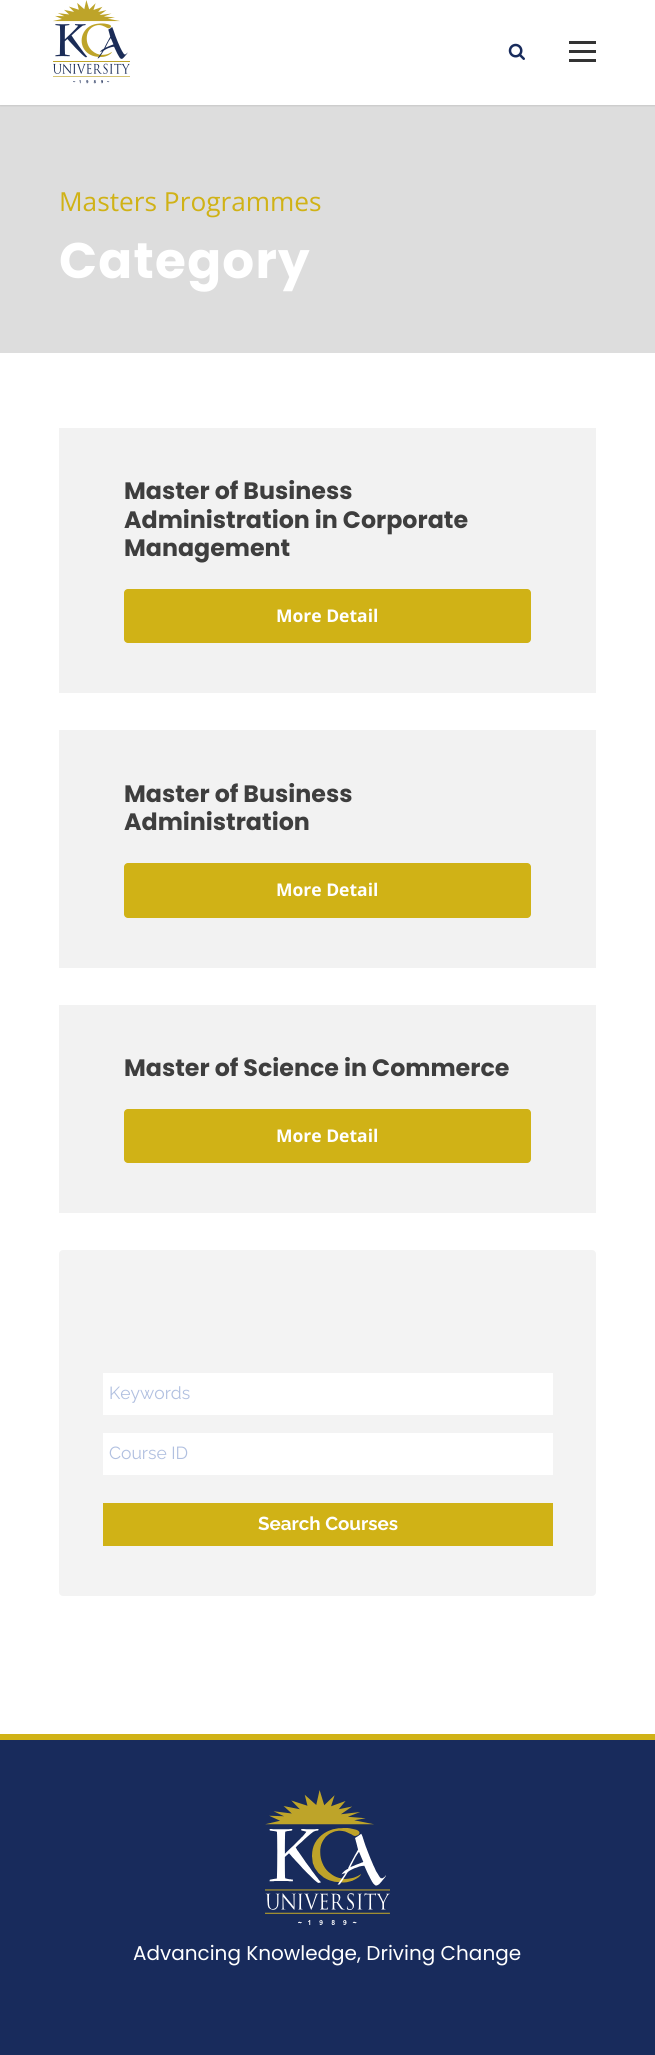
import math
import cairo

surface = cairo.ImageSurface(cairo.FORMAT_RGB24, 655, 2055)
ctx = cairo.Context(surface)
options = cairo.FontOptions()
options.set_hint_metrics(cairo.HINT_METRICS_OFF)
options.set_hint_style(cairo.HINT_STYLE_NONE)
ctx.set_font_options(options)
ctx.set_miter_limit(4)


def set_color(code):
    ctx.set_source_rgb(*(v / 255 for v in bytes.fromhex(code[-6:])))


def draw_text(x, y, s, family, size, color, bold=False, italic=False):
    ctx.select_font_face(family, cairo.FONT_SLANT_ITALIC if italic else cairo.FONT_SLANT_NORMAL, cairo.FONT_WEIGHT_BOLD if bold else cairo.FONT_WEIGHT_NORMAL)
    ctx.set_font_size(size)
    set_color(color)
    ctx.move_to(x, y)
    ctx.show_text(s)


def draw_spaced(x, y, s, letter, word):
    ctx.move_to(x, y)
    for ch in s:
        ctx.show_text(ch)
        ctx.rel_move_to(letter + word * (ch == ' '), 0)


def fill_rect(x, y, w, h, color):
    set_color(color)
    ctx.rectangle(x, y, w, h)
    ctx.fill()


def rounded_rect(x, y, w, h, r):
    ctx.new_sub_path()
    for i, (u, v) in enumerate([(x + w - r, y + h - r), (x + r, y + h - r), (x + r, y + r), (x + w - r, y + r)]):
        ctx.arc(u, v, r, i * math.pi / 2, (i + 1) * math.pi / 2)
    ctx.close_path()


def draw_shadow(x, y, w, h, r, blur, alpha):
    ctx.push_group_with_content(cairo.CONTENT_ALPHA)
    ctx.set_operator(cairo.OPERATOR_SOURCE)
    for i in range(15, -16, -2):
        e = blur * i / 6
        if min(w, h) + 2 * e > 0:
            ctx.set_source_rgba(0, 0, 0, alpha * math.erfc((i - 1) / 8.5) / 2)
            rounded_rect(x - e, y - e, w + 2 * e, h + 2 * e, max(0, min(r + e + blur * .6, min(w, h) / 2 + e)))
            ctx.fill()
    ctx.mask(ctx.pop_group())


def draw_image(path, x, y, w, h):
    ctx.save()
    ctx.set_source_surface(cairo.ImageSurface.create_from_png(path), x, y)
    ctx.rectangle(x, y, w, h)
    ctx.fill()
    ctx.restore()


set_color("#ffffff")
ctx.paint()
fill_rect(0, 105, 655, 248, "#dddddd")
ctx.save()
ctx.rectangle(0, 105, 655, 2)
ctx.clip()
set_color("#000000")
draw_shadow(0, 1, 655, 105, 0, 1, 0.1)
ctx.restore()
draw_image("assets/img1.png", 53, 0, 77, 84)
draw_image("assets/img2.png", 508, 43, 17, 17)
fill_rect(569, 41, 27, 3, "#333333")
fill_rect(569, 50, 27, 3, "#333333")
fill_rect(569, 59, 27, 3, "#333333")
draw_text(59, 211, "Masters Programmes", "Open Sans", 26.25, "#d0b216")
ctx.select_font_face("Poppins", cairo.FONT_SLANT_NORMAL, cairo.FONT_WEIGHT_BOLD)
ctx.set_font_size(50)
set_color("#ffffff")
draw_spaced(59, 278, "Category", 1.25, 0)
fill_rect(59, 428, 537, 265, "#f2f2f2")
draw_text(124, 499, "Master of Business", "Poppins", 23.75, "#3e3e3e", bold=True)
draw_text(124, 528, "Administration in Corporate", "Poppins", 23.75, "#3e3e3e", bold=True)
draw_text(124, 556, "Management", "Poppins", 23.75, "#3e3e3e", bold=True)
set_color("#d0b216")
rounded_rect(124, 589, 407, 54, 4)
ctx.fill()
draw_text(276, 622, "More Detail", "Open Sans", 17.5, "#ffffff", bold=True)
fill_rect(59, 730, 537, 238, "#f2f2f2")
draw_text(124, 802, "Master of Business", "Poppins", 23.75, "#3e3e3e", bold=True)
draw_text(124, 830, "Administration", "Poppins", 23.75, "#3e3e3e", bold=True)
set_color("#d0b216")
rounded_rect(124, 863, 407, 55, 4)
ctx.fill()
draw_text(276, 896, "More Detail", "Open Sans", 17.5, "#ffffff", bold=True)
fill_rect(59, 1005, 537, 208, "#f2f2f2")
draw_text(124, 1076, "Master of Science in Commerce", "Poppins", 23.75, "#3e3e3e", bold=True)
set_color("#d0b216")
rounded_rect(124, 1109, 407, 54, 4)
ctx.fill()
draw_text(276, 1142, "More Detail", "Open Sans", 17.5, "#ffffff", bold=True)
set_color("#f3f3f3")
rounded_rect(59, 1250, 537, 346, 4)
ctx.fill()
fill_rect(103, 1373, 450, 42, "#ffffff")
draw_text(109, 1399, "Keywords", "Raleway", 17.5, "#b1c0e0")
fill_rect(103, 1433, 450, 42, "#ffffff")
draw_text(109, 1459, "Course ID", "Raleway", 17.5, "#b1c0e0")
fill_rect(103, 1503, 450, 43, "#d0b216")
draw_text(258, 1530, "Search Courses", "Raleway", 18.75, "#ffffff", bold=True)
fill_rect(0, 1740, 655, 315, "#182b5c")
fill_rect(0, 1734, 655, 6, "#d0b216")
draw_image("assets/img3.png", 265, 1790, 125, 135)
draw_text(133, 1960, "Advancing Knowledge, Driving Change", "Poppins", 20, "#ffffff")
surface.write_to_png("output.png")
